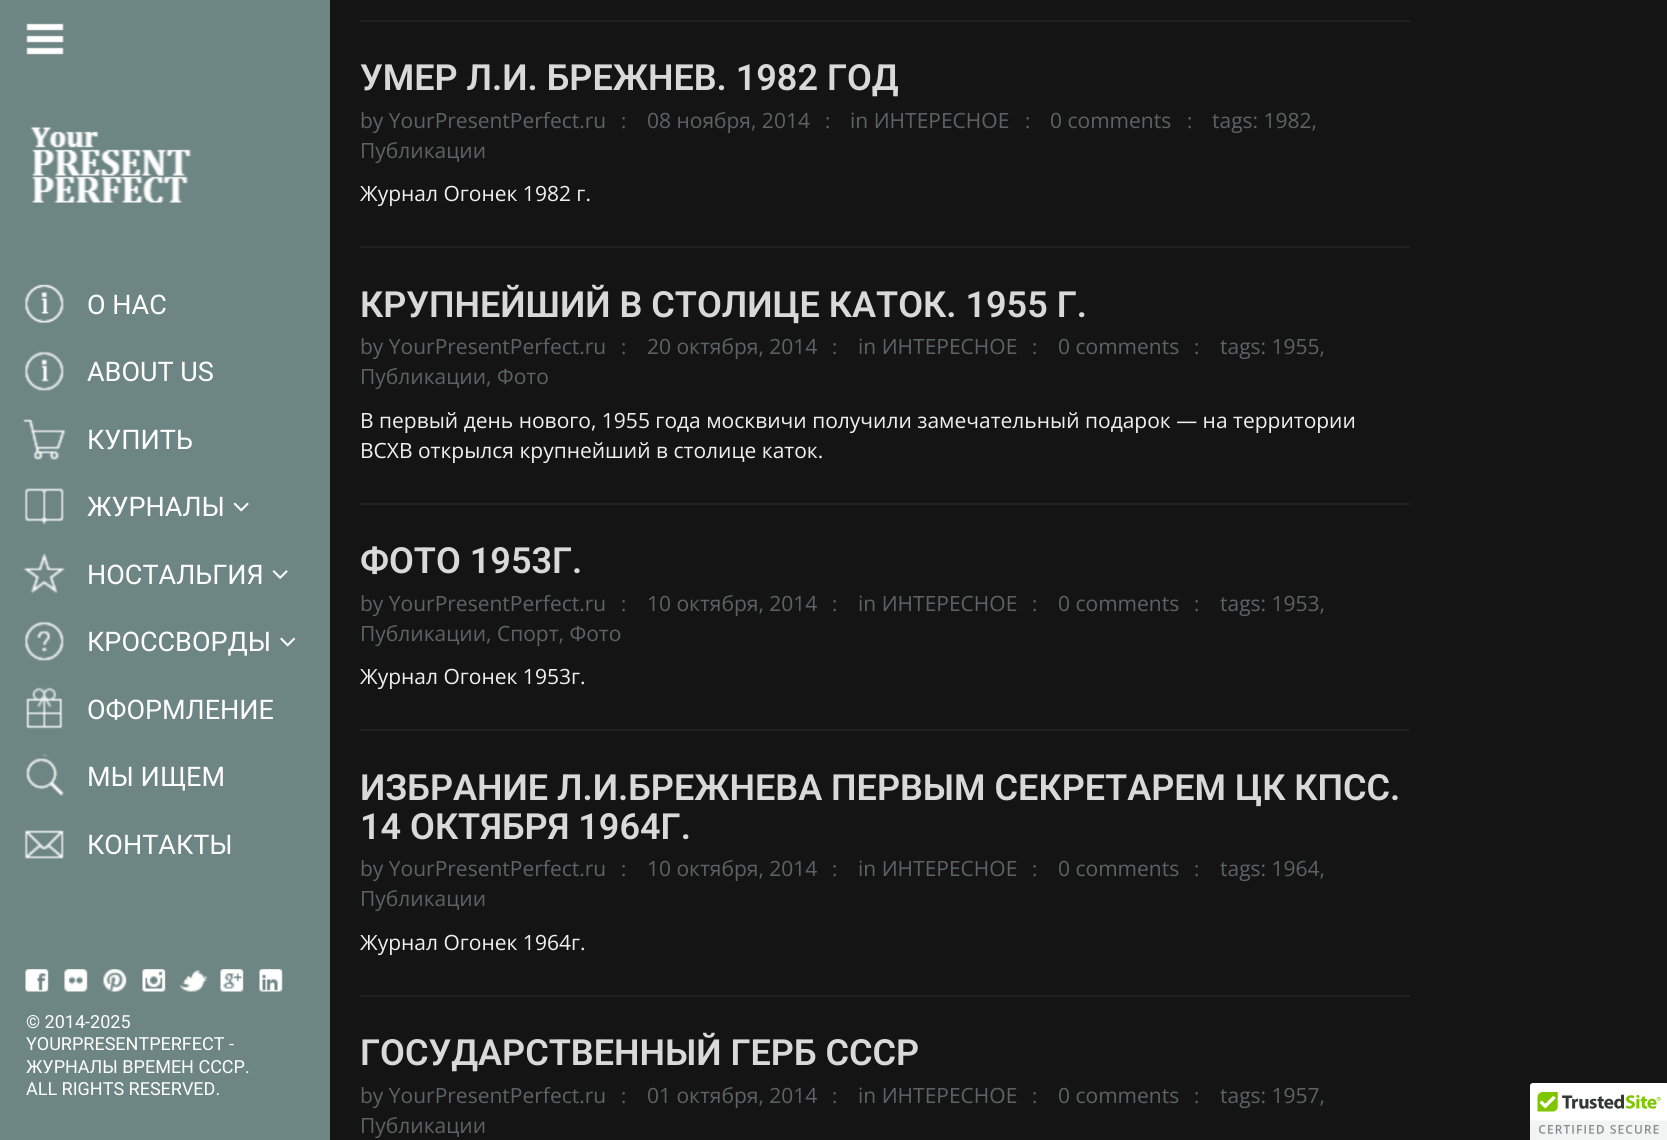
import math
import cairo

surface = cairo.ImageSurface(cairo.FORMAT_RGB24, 1667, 1140)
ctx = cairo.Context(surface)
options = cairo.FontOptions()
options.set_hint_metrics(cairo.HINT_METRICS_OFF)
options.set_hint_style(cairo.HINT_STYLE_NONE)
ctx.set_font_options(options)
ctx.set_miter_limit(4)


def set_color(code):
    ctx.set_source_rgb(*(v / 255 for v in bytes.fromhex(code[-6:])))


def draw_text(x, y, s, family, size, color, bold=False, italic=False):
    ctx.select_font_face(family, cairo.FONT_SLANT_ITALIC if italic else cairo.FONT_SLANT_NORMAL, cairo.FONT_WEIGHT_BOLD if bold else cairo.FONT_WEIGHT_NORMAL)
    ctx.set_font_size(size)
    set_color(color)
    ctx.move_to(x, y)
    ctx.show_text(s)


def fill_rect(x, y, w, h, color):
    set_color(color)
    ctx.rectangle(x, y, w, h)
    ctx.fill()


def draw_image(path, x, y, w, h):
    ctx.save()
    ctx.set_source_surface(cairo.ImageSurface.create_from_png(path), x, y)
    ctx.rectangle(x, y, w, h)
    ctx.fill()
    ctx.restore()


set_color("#141414")
ctx.paint()
fill_rect(0, 0, 330, 1140, "#6d8583")
draw_image("assets/img1.png", 26, 23, 38, 32)
draw_image("assets/img2.png", 30, 127, 162, 76)
draw_image("assets/img3.png", 24, 284, 40, 39)
draw_text(87, 314, "О НАС", "Roboto", 27, "#ffffff")
draw_image("assets/img4.png", 24, 351, 40, 40)
draw_text(87, 381, "ABOUT US", "Roboto", 27, "#ffffff")
draw_image("assets/img5.png", 23, 419, 43, 41)
draw_text(87, 449, "КУПИТЬ", "Roboto", 27, "#ffffff")
draw_image("assets/img6.png", 24, 488, 40, 37)
draw_text(87, 516, "ЖУРНАЛЫ", "Roboto", 27, "#ffffff")
draw_image("assets/img7.png", 233, 502, 16, 10)
draw_image("assets/img8.png", 23, 553, 43, 41)
draw_text(87, 584, "НОСТАЛЬГИЯ", "Roboto", 27, "#ffffff")
draw_image("assets/img9.png", 272, 570, 16, 9)
draw_image("assets/img10.png", 24, 621, 40, 40)
draw_text(87, 651, "КРОССВОРДЫ", "Roboto", 27, "#ffffff")
draw_image("assets/img11.png", 280, 637, 16, 10)
draw_image("assets/img12.png", 26, 687, 37, 42)
draw_text(87, 719, "ОФОРМЛЕНИЕ", "Roboto", 27, "#ffffff")
draw_image("assets/img13.png", 26, 754, 38, 42)
draw_text(87, 786, "МЫ ИЩЕМ", "Roboto", 27, "#ffffff")
draw_image("assets/img14.png", 24, 830, 40, 29)
draw_text(87, 854, "КОНТАКТЫ", "Roboto", 27, "#ffffff")
draw_image("assets/img15.png", 25, 969, 24, 23)
draw_image("assets/img16.png", 64, 969, 24, 23)
draw_image("assets/img17.png", 103, 969, 24, 23)
draw_image("assets/img18.png", 142, 969, 24, 23)
draw_image("assets/img19.png", 180, 970, 27, 22)
draw_image("assets/img20.png", 220, 969, 24, 23)
draw_image("assets/img21.png", 259, 969, 24, 23)
draw_text(26, 1028, "© 2014-2025", "Roboto", 18, "#ffffff")
draw_text(26, 1050, "YOURPRESENTPERFECT -", "Roboto", 18, "#ffffff")
draw_text(26, 1073, "ЖУРНАЛЫ ВРЕМЕН СССР.", "Roboto", 18, "#ffffff")
draw_text(26, 1095, "ALL RIGHTS RESERVED.", "Roboto", 18, "#ffffff")
fill_rect(360, 20, 1050, 2, "#202020")
draw_text(360, 90, "УМЕР Л.И. БРЕЖНЕВ. 1982 ГОД", "Roboto SemiBold", 36, "#d9d9d9")
draw_text(360, 128, "by YourPresentPerfect.ru", "Open Sans", 21, "#5d6262")
draw_text(621, 128, ":", "Open Sans", 20, "#5d6262")
draw_text(647, 128, "08 ноября, 2014", "Open Sans", 21, "#5d6262")
draw_text(825, 128, ":", "Open Sans", 20, "#5d6262")
draw_text(850, 128, "in ИНТЕРЕСНОЕ", "Open Sans", 21, "#5d6262")
draw_text(1025, 128, ":", "Open Sans", 20, "#5d6262")
draw_text(1050, 128, "0 comments", "Open Sans", 21, "#5d6262")
draw_text(1187, 128, ":", "Open Sans", 20, "#5d6262")
draw_text(1212, 128, "tags: 1982,", "Open Sans", 21, "#5d6262")
draw_text(360, 158, "Публикации", "Open Sans", 21, "#5d6262")
draw_text(360, 201, "Журнал Огонек 1982 г.", "Open Sans", 21, "#f0f0f0")
fill_rect(360, 246, 1050, 2, "#202020")
draw_text(360, 317, "КРУПНЕЙШИЙ В СТОЛИЦЕ КАТОК. 1955 Г.", "Roboto SemiBold", 36, "#d9d9d9")
draw_text(360, 354, "by YourPresentPerfect.ru", "Open Sans", 21, "#5d6262")
draw_text(621, 354, ":", "Open Sans", 20, "#5d6262")
draw_text(647, 354, "20 октября, 2014", "Open Sans", 21, "#5d6262")
draw_text(832, 354, ":", "Open Sans", 20, "#5d6262")
draw_text(858, 354, "in ИНТЕРЕСНОЕ", "Open Sans", 21, "#5d6262")
draw_text(1032, 354, ":", "Open Sans", 20, "#5d6262")
draw_text(1058, 354, "0 comments", "Open Sans", 21, "#5d6262")
draw_text(1194, 354, ":", "Open Sans", 20, "#5d6262")
draw_text(1220, 354, "tags: 1955,", "Open Sans", 21, "#5d6262")
draw_text(360, 384, "Публикации, Фото", "Open Sans", 21, "#5d6262")
draw_text(360, 428, "В первый день нового, 1955 года москвичи получили замечательный подарок — на территории", "Open Sans", 21, "#f0f0f0")
draw_text(360, 458, "ВСХВ открылся крупнейший в столице каток.", "Open Sans", 21, "#f0f0f0")
fill_rect(360, 503, 1050, 2, "#202020")
draw_text(360, 573, "ФОТО 1953Г.", "Roboto SemiBold", 36, "#d9d9d9")
draw_text(360, 611, "by YourPresentPerfect.ru", "Open Sans", 21, "#5d6262")
draw_text(621, 611, ":", "Open Sans", 20, "#5d6262")
draw_text(647, 611, "10 октября, 2014", "Open Sans", 21, "#5d6262")
draw_text(832, 611, ":", "Open Sans", 20, "#5d6262")
draw_text(858, 611, "in ИНТЕРЕСНОЕ", "Open Sans", 21, "#5d6262")
draw_text(1032, 611, ":", "Open Sans", 20, "#5d6262")
draw_text(1058, 611, "0 comments", "Open Sans", 21, "#5d6262")
draw_text(1194, 611, ":", "Open Sans", 20, "#5d6262")
draw_text(1220, 611, "tags: 1953,", "Open Sans", 21, "#5d6262")
draw_text(360, 641, "Публикации, Спорт, Фото", "Open Sans", 21, "#5d6262")
draw_text(360, 684, "Журнал Огонек 1953г.", "Open Sans", 21, "#f0f0f0")
fill_rect(360, 729, 1050, 2, "#202020")
draw_text(360, 800, "ИЗБРАНИЕ Л.И.БРЕЖНЕВА ПЕРВЫМ СЕКРЕТАРЕМ ЦК КПСС.", "Roboto SemiBold", 36, "#d9d9d9")
draw_text(360, 839, "14 ОКТЯБРЯ 1964Г.", "Roboto SemiBold", 36, "#d9d9d9")
draw_text(360, 876, "by YourPresentPerfect.ru", "Open Sans", 21, "#5d6262")
draw_text(621, 876, ":", "Open Sans", 20, "#5d6262")
draw_text(647, 876, "10 октября, 2014", "Open Sans", 21, "#5d6262")
draw_text(832, 876, ":", "Open Sans", 20, "#5d6262")
draw_text(858, 876, "in ИНТЕРЕСНОЕ", "Open Sans", 21, "#5d6262")
draw_text(1032, 876, ":", "Open Sans", 20, "#5d6262")
draw_text(1058, 876, "0 comments", "Open Sans", 21, "#5d6262")
draw_text(1194, 876, ":", "Open Sans", 20, "#5d6262")
draw_text(1220, 876, "tags: 1964,", "Open Sans", 21, "#5d6262")
draw_text(360, 906, "Публикации", "Open Sans", 21, "#5d6262")
draw_text(360, 950, "Журнал Огонек 1964г.", "Open Sans", 21, "#f0f0f0")
fill_rect(360, 995, 1050, 2, "#202020")
draw_text(360, 1065, "ГОСУДАРСТВЕННЫЙ ГЕРБ СССР", "Roboto SemiBold", 36, "#d9d9d9")
draw_text(360, 1103, "by YourPresentPerfect.ru", "Open Sans", 21, "#5d6262")
draw_text(621, 1103, ":", "Open Sans", 20, "#5d6262")
draw_text(647, 1103, "01 октября, 2014", "Open Sans", 21, "#5d6262")
draw_text(832, 1103, ":", "Open Sans", 20, "#5d6262")
draw_text(858, 1103, "in ИНТЕРЕСНОЕ", "Open Sans", 21, "#5d6262")
draw_text(1032, 1103, ":", "Open Sans", 20, "#5d6262")
draw_text(1058, 1103, "0 comments", "Open Sans", 21, "#5d6262")
draw_text(1194, 1103, ":", "Open Sans", 20, "#5d6262")
draw_text(1220, 1103, "tags: 1957,", "Open Sans", 21, "#5d6262")
draw_text(360, 1133, "Публикации", "Open Sans", 21, "#5d6262")
set_color("#ffffff")
ctx.new_path()
ctx.move_to(1533, 1083)
ctx.line_to(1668, 1083)
ctx.line_to(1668, 1140)
ctx.line_to(1530, 1140)
ctx.line_to(1530, 1086)
ctx.curve_to(1530, 1084.5, 1531.5, 1083, 1533, 1083)
ctx.close_path()
ctx.fill()
draw_image("assets/img22.png", 1530, 1083, 137, 57)
surface.write_to_png("output.png")
